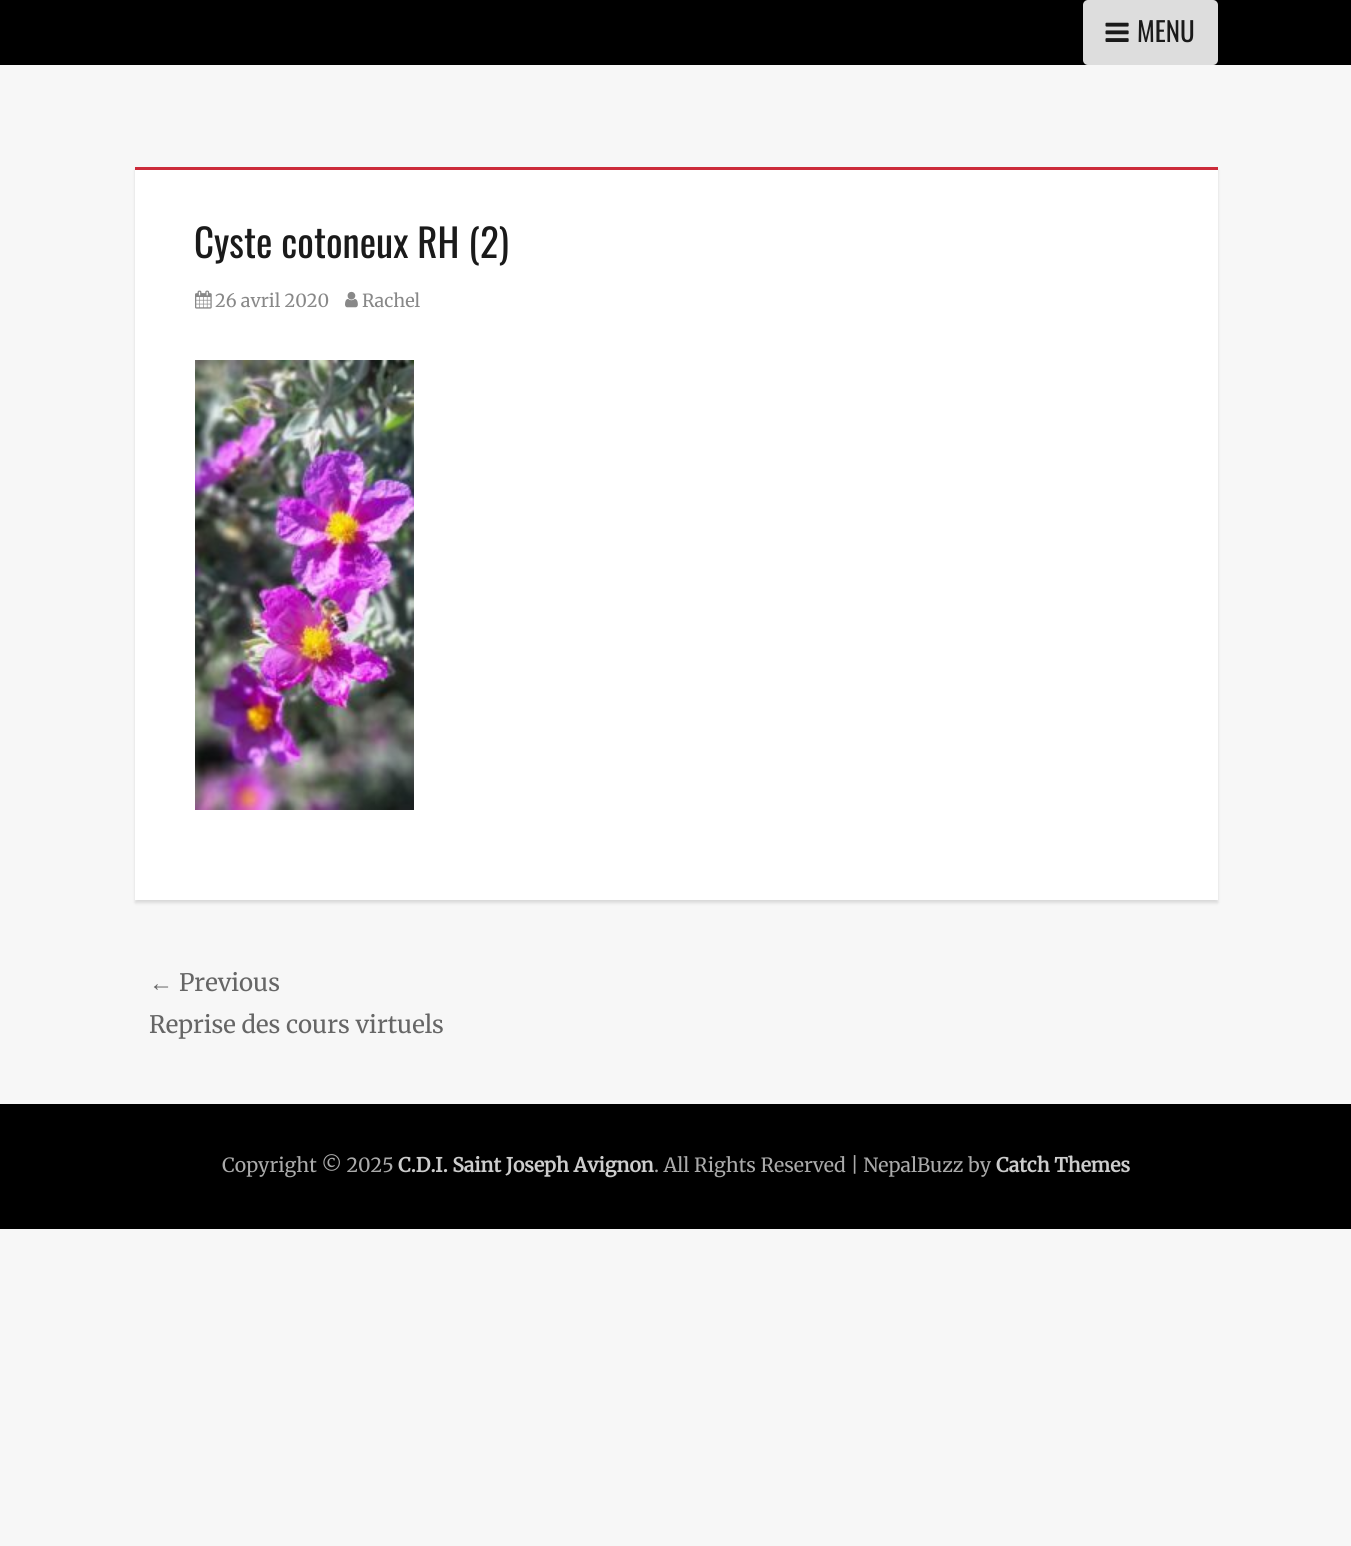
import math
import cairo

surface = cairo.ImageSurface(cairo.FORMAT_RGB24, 1351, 1546)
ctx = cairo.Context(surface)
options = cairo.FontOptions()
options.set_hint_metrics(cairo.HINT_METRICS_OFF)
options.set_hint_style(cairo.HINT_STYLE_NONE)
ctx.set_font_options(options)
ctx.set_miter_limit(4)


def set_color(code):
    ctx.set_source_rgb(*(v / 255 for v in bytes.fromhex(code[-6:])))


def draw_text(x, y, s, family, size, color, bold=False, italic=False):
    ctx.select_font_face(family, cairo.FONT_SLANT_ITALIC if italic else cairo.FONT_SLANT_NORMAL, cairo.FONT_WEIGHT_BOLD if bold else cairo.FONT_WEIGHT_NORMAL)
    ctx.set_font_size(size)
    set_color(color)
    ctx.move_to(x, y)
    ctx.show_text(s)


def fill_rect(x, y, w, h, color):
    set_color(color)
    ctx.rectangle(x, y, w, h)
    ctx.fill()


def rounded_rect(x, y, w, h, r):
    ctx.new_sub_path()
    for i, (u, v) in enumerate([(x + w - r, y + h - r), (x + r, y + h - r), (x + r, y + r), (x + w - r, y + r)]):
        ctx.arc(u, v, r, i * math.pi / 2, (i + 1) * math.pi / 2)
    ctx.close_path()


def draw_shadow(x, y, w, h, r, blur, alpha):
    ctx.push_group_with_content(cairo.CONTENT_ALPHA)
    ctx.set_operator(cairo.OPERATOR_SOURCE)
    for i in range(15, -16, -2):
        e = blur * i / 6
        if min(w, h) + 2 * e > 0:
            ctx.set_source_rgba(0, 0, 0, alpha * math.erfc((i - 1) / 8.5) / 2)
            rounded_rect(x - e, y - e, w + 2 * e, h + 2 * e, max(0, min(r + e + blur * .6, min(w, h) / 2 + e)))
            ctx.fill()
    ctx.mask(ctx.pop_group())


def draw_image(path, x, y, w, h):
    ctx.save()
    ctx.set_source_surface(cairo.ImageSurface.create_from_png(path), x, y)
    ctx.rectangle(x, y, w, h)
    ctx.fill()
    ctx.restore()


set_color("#f7f7f7")
ctx.paint()
fill_rect(0, 0, 1351, 65, "#000000")
set_color("#dddddd")
rounded_rect(1083, 0, 135, 65, 5)
ctx.fill()
draw_image("assets/img1.png", 1105, 22, 24, 20)
draw_text(1137, 42, "MENU", "Oswald", 27, "#1a1a1a")
set_color("#000000")
draw_shadow(135, 170, 1083, 733, 0, 1.5, 0.12)
fill_rect(135, 170, 1083, 730, "#ffffff")
fill_rect(135, 167, 1083, 3, "#cc2b3a")
draw_text(194, 258, "Cyste cotoneux RH (2)", "Oswald", 39, "#1a1a1a")
draw_image("assets/img2.png", 195, 290, 17, 19)
draw_text(215, 307, "26 avril 2020", "Merriweather Light", 18, "#888888")
draw_image("assets/img3.png", 345, 291, 13, 17)
draw_text(362, 307, "Rachel", "Merriweather Light", 18, "#888888")
draw_image("assets/img4.png", 195, 360, 219, 450)
draw_text(149, 991, "←", "Liberation Serif", 24, "#666666")
draw_text(179, 991, "Previous", "Merriweather Light", 24, "#666666")
draw_text(149, 1033, "Reprise des cours virtuels", "Merriweather Light", 24, "#666666")
fill_rect(0, 1104, 1351, 125, "#000000")
draw_text(222, 1172, "Copyright © 2025", "Merriweather Light", 19.5, "#aaaaaa")
draw_text(398, 1172, "C.D.I. Saint Joseph Avignon", "Merriweather", 19.5, "#cccccc", bold=True)
draw_text(654, 1172, ". All Rights Reserved | NepalBuzz by", "Merriweather Light", 19.5, "#aaaaaa")
draw_text(996, 1172, "Catch Themes", "Merriweather", 19.5, "#cccccc", bold=True)
surface.write_to_png("output.png")
